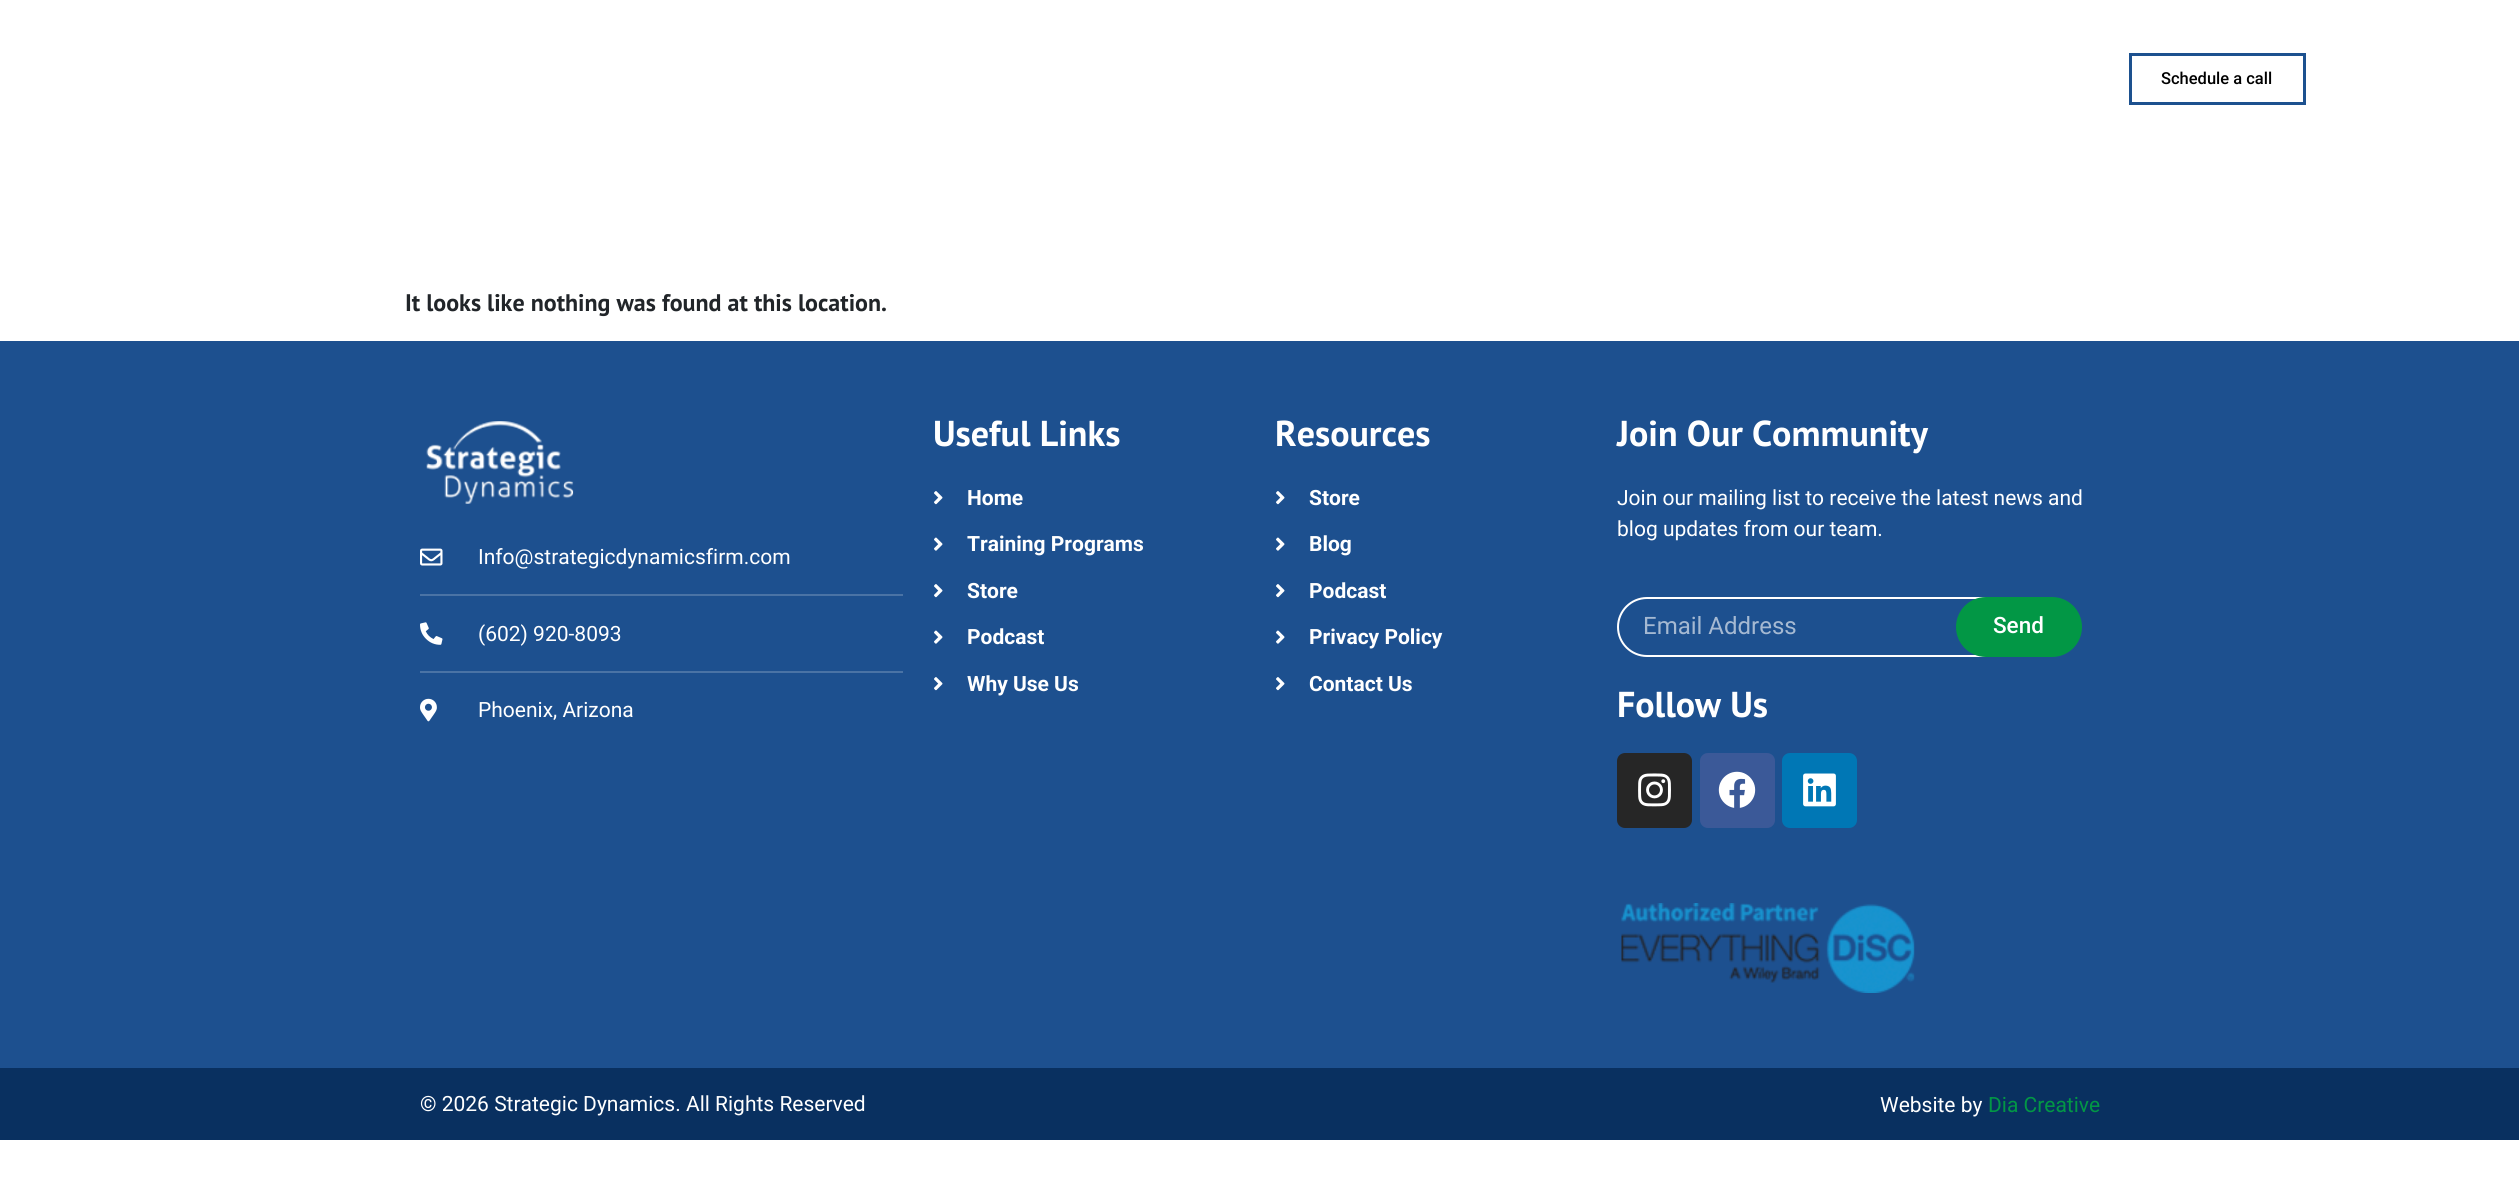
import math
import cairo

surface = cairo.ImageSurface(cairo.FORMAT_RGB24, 2519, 1201)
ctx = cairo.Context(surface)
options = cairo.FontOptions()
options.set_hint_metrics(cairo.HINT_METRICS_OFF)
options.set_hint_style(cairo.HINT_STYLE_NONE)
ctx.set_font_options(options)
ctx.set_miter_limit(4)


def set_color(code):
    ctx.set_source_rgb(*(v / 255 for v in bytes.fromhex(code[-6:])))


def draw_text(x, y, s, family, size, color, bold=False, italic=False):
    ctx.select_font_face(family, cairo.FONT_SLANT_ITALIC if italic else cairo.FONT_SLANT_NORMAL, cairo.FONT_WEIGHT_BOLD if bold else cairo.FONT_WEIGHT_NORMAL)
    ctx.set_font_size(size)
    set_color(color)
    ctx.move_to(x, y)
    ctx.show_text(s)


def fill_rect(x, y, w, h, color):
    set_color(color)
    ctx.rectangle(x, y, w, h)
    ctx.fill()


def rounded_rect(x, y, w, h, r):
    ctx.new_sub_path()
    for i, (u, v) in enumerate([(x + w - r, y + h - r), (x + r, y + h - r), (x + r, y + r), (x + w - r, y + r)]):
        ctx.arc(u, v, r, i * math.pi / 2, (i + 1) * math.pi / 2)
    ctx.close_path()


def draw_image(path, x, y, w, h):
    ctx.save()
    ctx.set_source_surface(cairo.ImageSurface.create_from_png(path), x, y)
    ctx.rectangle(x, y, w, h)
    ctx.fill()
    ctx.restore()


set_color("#ffffff")
ctx.paint()
ctx.rectangle(2130.5, 54.5, 174, 49)
set_color("#1d518f")
ctx.set_line_width(3)
ctx.stroke()
draw_text(2161, 84, "Schedule a call", "Roboto Medium", 16.5, "#000000")
draw_text(405, 311, "It looks like nothing was found at this location.", "PT Sans", 24, "#212529", bold=True)
fill_rect(0, 341, 2519, 727, "#1d508f")
draw_image("assets/img1.png", 426, 421, 148, 83)
draw_image("assets/img2.png", 420, 548, 23, 18)
draw_text(478, 564, "Info@strategicdynamicsfirm.com", "Roboto", 21, "#ffffff")
fill_rect(420, 594, 483, 2, "#4a73a5")
draw_image("assets/img3.png", 420, 622, 23, 23)
draw_text(478, 641, "(602) 920-8093", "Roboto", 21, "#ffffff")
fill_rect(420, 671, 483, 2, "#4a73a5")
draw_image("assets/img4.png", 420, 698, 17, 24)
draw_text(478, 717, "Phoenix, Arizona", "Roboto", 21, "#ffffff")
draw_text(933, 446, "Useful Links", "PT Sans", 36, "#ffffff", bold=True)
draw_image("assets/img5.png", 934, 491, 9, 14)
draw_text(967, 505, "Home", "Roboto", 21, "#ffffff", bold=True)
draw_image("assets/img6.png", 934, 537, 9, 14)
draw_text(967, 551, "Training Programs", "Roboto", 21, "#ffffff", bold=True)
draw_image("assets/img5.png", 934, 584, 9, 14)
draw_text(967, 598, "Store", "Roboto", 21, "#ffffff", bold=True)
draw_image("assets/img6.png", 934, 630, 9, 14)
draw_text(967, 644, "Podcast", "Roboto", 21, "#ffffff", bold=True)
draw_image("assets/img5.png", 934, 677, 9, 14)
draw_text(967, 691, "Why Use Us", "Roboto", 21, "#ffffff", bold=True)
draw_text(1275, 446, "Resources", "PT Sans", 36, "#ffffff", bold=True)
draw_image("assets/img5.png", 1276, 491, 9, 14)
draw_text(1309, 505, "Store", "Roboto", 21, "#ffffff", bold=True)
draw_image("assets/img6.png", 1276, 537, 9, 14)
draw_text(1309, 551, "Blog", "Roboto", 21, "#ffffff", bold=True)
draw_image("assets/img5.png", 1276, 584, 9, 14)
draw_text(1309, 598, "Podcast", "Roboto", 21, "#ffffff", bold=True)
draw_image("assets/img6.png", 1276, 630, 9, 14)
draw_text(1309, 644, "Privacy Policy", "Roboto", 21, "#ffffff", bold=True)
draw_image("assets/img5.png", 1276, 677, 9, 14)
draw_text(1309, 691, "Contact Us", "Roboto", 21, "#ffffff", bold=True)
draw_text(1617, 446, "Join Our Community", "PT Sans", 36, "#ffffff", bold=True)
draw_text(1617, 505, "Join our mailing list to receive the latest news and", "Roboto", 21, "#ffffff")
draw_text(1617, 536, "blog updates from our team.", "Roboto", 21, "#ffffff")
ctx.new_path()
ctx.move_to(1647, 598)
ctx.line_to(2000, 598)
ctx.line_to(2000, 656)
ctx.line_to(1647, 656)
ctx.curve_to(1631, 656, 1618, 643, 1618, 627)
ctx.curve_to(1618, 611, 1631, 598, 1647, 598)
ctx.close_path()
ctx.set_line_width(2)
ctx.stroke()
draw_text(1643, 634, "Email Address", "Roboto", 24, "#a5b9d2")
set_color("#029745")
rounded_rect(1957, 598, 124, 58, 29)
ctx.fill_preserve()
ctx.stroke()
draw_text(1993, 633, "Send", "Roboto Medium", 22.5, "#ffffff")
draw_text(1617, 717, "Follow Us", "PT Sans", 36, "#ffffff", bold=True)
set_color("#262626")
rounded_rect(1617, 753, 75, 75, 8)
ctx.fill()
draw_image("assets/img7.png", 1638, 773, 33, 34)
set_color("#3b5998")
rounded_rect(1700, 753, 75, 75, 8)
ctx.fill()
draw_image("assets/img8.png", 1718, 771, 38, 37)
set_color("#0077b5")
rounded_rect(1782, 753, 75, 75, 8)
ctx.fill()
draw_image("assets/img9.png", 1803, 773, 33, 34)
draw_image("assets/img10.png", 1621, 903, 294, 90)
fill_rect(0, 1068, 2519, 72, "#093060")
draw_text(420, 1111, "© 2026 Strategic Dynamics. All Rights Reserved", "Roboto", 21, "#ffffff")
draw_text(1880, 1112, "Website by", "Roboto", 21, "#ffffff")
draw_text(1988, 1112, "Dia Creative", "Roboto", 21, "#029745")
surface.write_to_png("output.png")
